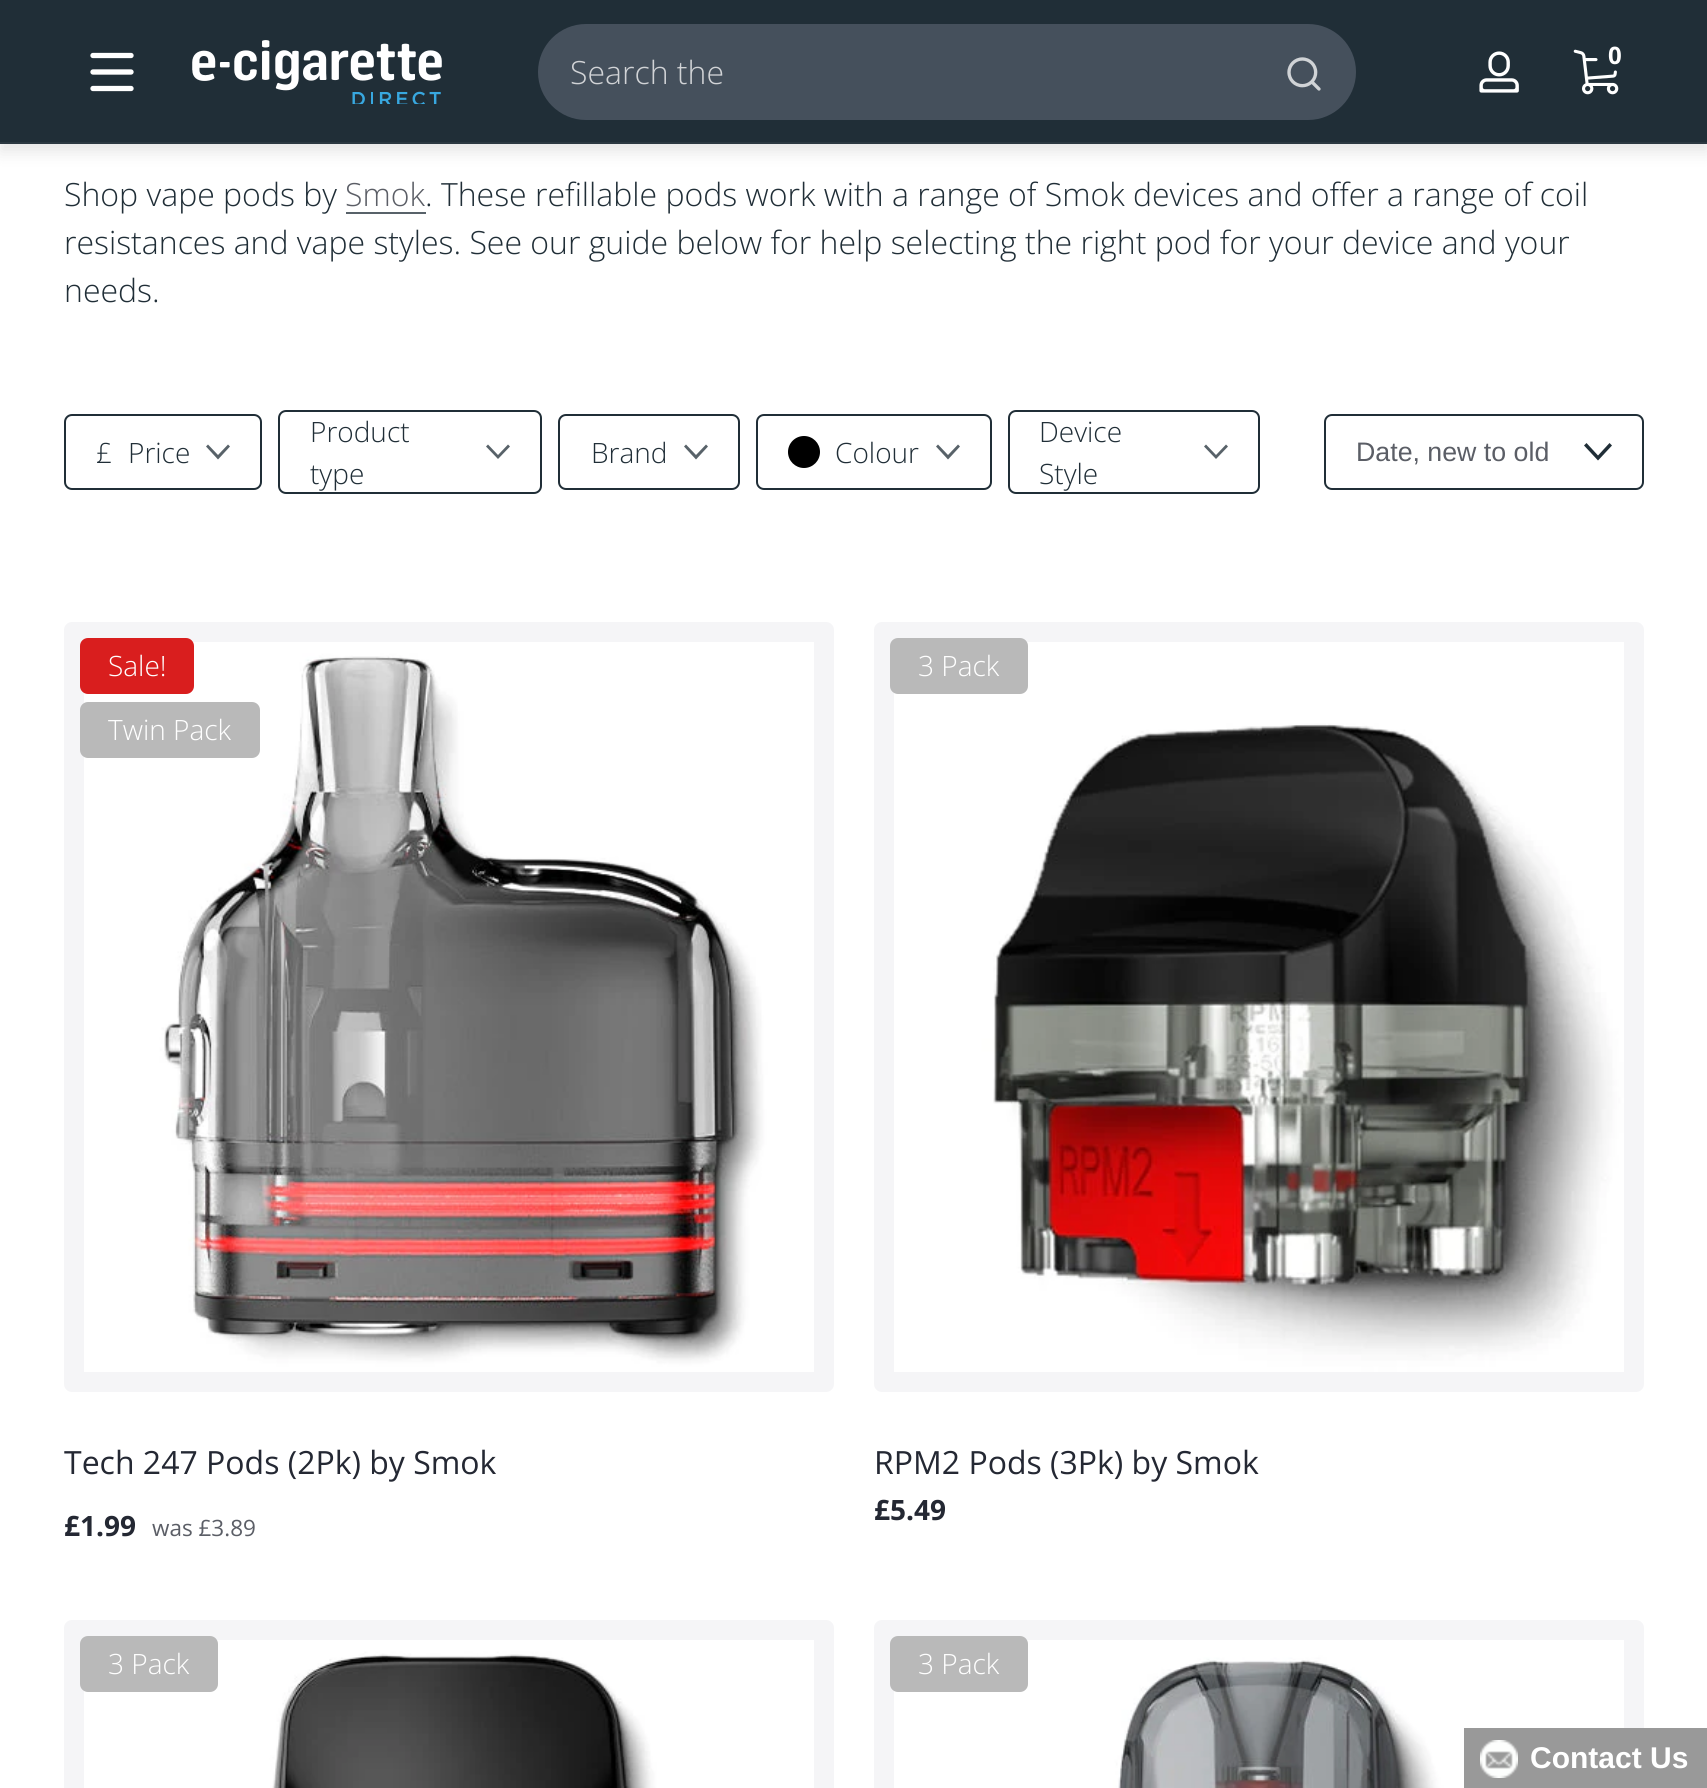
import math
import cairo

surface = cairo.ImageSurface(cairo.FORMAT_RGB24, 1707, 1788)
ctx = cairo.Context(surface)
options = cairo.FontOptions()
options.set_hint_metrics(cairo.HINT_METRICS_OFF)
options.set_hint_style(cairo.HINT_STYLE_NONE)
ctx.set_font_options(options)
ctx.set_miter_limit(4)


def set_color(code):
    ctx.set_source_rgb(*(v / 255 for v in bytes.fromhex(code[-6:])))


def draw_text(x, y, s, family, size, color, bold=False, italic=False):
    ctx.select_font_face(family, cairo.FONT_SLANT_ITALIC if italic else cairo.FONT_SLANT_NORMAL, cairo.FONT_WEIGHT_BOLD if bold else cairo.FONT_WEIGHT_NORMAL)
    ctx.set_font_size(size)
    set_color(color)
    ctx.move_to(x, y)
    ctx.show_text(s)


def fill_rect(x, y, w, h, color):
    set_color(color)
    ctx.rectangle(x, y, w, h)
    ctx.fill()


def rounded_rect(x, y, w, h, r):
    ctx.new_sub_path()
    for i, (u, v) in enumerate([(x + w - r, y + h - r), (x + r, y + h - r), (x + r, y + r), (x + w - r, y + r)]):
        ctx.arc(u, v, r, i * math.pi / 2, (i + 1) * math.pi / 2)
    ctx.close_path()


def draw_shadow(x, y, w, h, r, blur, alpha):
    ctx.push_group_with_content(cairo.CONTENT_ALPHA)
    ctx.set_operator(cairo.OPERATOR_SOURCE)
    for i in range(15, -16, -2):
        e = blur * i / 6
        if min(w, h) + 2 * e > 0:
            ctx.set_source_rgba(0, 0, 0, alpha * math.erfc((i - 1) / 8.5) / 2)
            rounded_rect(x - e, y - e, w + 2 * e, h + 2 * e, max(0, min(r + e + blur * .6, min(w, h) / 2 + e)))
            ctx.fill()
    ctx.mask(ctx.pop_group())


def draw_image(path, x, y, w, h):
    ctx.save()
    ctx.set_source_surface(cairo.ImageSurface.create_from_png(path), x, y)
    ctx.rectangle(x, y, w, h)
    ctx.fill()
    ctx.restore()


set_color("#ffffff")
ctx.paint()
set_color("#000000")
draw_shadow(0, 8, 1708, 144, 0, 8, 0.1)
fill_rect(0, 0, 1707, 142, "#202e37")
ctx.new_path()
ctx.move_to(93, 55.5)
ctx.line_to(131, 55.5)
ctx.move_to(93, 72)
ctx.line_to(131, 72)
ctx.move_to(93, 88.5)
ctx.line_to(131, 88.5)
set_color("#ffffff")
ctx.set_line_width(5.3)
ctx.set_line_cap(cairo.LINE_CAP_ROUND)
ctx.stroke()
draw_image("assets/img1.png", 192, 40, 250, 64)
set_color("#45505c")
rounded_rect(538, 24, 818, 96, 48)
ctx.fill()
draw_text(570, 84, "Search the", "Open Sans Light", 32, "#d1d3d6")
draw_image("assets/img2.png", 1287, 57, 34, 34)
draw_image("assets/img3.png", 1479, 51, 40, 42)
draw_image("assets/img4.png", 1573, 49, 46, 46)
draw_text(1608, 64, "0", "Open Sans", 24, "#ffffff", bold=True)
fill_rect(0, 142, 1707, 2, "#2b3841")
draw_text(64, 206, "Shop vape pods by", "Open Sans Light", 32, "#202e37")
draw_text(345, 206, "Smok", "Open Sans Light", 32, "#5b5e66")
fill_rect(346, 212, 80, 2, "#586269")
draw_text(425, 206, ". These refillable pods work with a range of Smok devices and offer a range of coil", "Open Sans Light", 32, "#202e37")
draw_text(64, 254, "resistances and vape styles. See our guide below for help selecting the right pod for your device and your", "Open Sans Light", 32, "#202e37")
draw_text(64, 302, "needs.", "Open Sans Light", 32, "#202e37")
set_color("#586269")
ctx.new_path()
ctx.move_to(218, 455)
ctx.line_to(228, 444.5)
ctx.line_to(230, 446.5)
ctx.line_to(218, 459.5)
ctx.line_to(206, 446.5)
ctx.line_to(208, 444.5)
ctx.close_path()
ctx.fill()
rounded_rect(65, 415, 196, 74, 7)
set_color("#202e37")
ctx.set_line_width(2)
ctx.set_line_cap(cairo.LINE_CAP_BUTT)
ctx.stroke()
draw_text(96, 463, "£", "Open Sans Light", 28, "#202e37")
draw_text(128, 463, "Price", "Open Sans Light", 28, "#202e37")
set_color("#586269")
ctx.new_path()
ctx.move_to(498, 455)
ctx.line_to(508, 444.5)
ctx.line_to(510, 446.5)
ctx.line_to(498, 459)
ctx.line_to(486, 446.5)
ctx.line_to(488, 444.5)
ctx.close_path()
ctx.fill()
rounded_rect(279, 411, 262, 82, 7)
set_color("#202e37")
ctx.stroke()
draw_text(310, 442, "Product", "Open Sans Light", 28, "#202e37")
draw_text(310, 484, "type", "Open Sans Light", 28, "#202e37")
set_color("#586269")
ctx.new_path()
ctx.move_to(696, 455)
ctx.line_to(706, 444.5)
ctx.line_to(708, 446.5)
ctx.line_to(696, 459.5)
ctx.line_to(684, 446.5)
ctx.line_to(686, 444.5)
ctx.close_path()
ctx.fill()
rounded_rect(559, 415, 180, 74, 7)
set_color("#202e37")
ctx.stroke()
draw_text(591, 463, "Brand", "Open Sans Light", 28, "#202e37")
set_color("#000000")
ctx.new_path()
ctx.arc(804, 452, 16, 0, 2 * math.pi)
ctx.fill()
set_color("#586269")
ctx.new_path()
ctx.move_to(948, 455)
ctx.line_to(958, 444.5)
ctx.line_to(960, 446.5)
ctx.line_to(948, 459.5)
ctx.line_to(936, 446.5)
ctx.line_to(938, 444.5)
ctx.close_path()
ctx.fill()
rounded_rect(757, 415, 234, 74, 7)
set_color("#202e37")
ctx.stroke()
draw_text(835, 463, "Colour", "Open Sans Light", 28, "#202e37")
set_color("#586269")
ctx.new_path()
ctx.move_to(1216, 455)
ctx.line_to(1226, 444.5)
ctx.line_to(1228, 446.5)
ctx.line_to(1216, 459)
ctx.line_to(1204, 446.5)
ctx.line_to(1206, 444.5)
ctx.close_path()
ctx.fill()
rounded_rect(1009, 411, 250, 82, 7)
set_color("#202e37")
ctx.stroke()
draw_text(1039, 442, "Device", "Open Sans Light", 28, "#202e37")
draw_text(1039, 484, "Style", "Open Sans Light", 28, "#202e37")
ctx.new_path()
ctx.move_to(1598, 455.5)
ctx.line_to(1609.5, 443)
ctx.line_to(1612, 445.5)
ctx.line_to(1598, 460.5)
ctx.line_to(1584, 445.5)
ctx.line_to(1586.5, 443)
ctx.close_path()
ctx.fill()
rounded_rect(1325, 415, 318, 74, 7)
ctx.stroke()
draw_text(1356, 461, "Date, new to old", "Liberation Sans", 26.75, "#5b5e66")
set_color("#f5f5f7")
rounded_rect(64, 622, 770, 770, 8)
ctx.fill()
draw_image("assets/img5.png", 84, 642, 730, 730)
set_color("#d91e1e")
rounded_rect(80, 638, 114, 56, 8)
ctx.fill()
draw_text(108, 676, "Sale!", "Open Sans Light", 28, "#ffffff")
set_color("#b9b9b9")
rounded_rect(80, 702, 180, 56, 8)
ctx.fill()
draw_text(108, 740, "Twin Pack", "Open Sans Light", 28, "#ffffff")
draw_text(64, 1474, "Tech 247 Pods (2Pk) by Smok", "Open Sans", 32, "#242833")
draw_text(64, 1536, "£1.99", "Open Sans", 28, "#242833", bold=True)
draw_text(152, 1536, "was £3.89", "Open Sans", 22.5, "#5b5e66")
set_color("#f5f5f7")
rounded_rect(874, 622, 770, 770, 8)
ctx.fill()
draw_image("assets/img6.png", 894, 642, 730, 730)
set_color("#b9b9b9")
rounded_rect(890, 638, 138, 56, 8)
ctx.fill()
draw_text(918, 676, "3 Pack", "Open Sans Light", 28, "#ffffff")
draw_text(874, 1474, "RPM2 Pods (3Pk) by Smok", "Open Sans", 32, "#242833")
draw_text(874, 1520, "£5.49", "Open Sans", 28, "#242833", bold=True)
set_color("#f5f5f7")
rounded_rect(64, 1620, 770, 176, 8)
ctx.fill()
draw_image("assets/img7.png", 84, 1640, 730, 148)
set_color("#b9b9b9")
rounded_rect(80, 1636, 138, 56, 8)
ctx.fill()
draw_text(108, 1674, "3 Pack", "Open Sans Light", 28, "#ffffff")
set_color("#f5f5f7")
rounded_rect(874, 1620, 770, 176, 8)
ctx.fill()
draw_image("assets/img8.png", 894, 1640, 730, 148)
set_color("#b9b9b9")
rounded_rect(890, 1636, 138, 56, 8)
ctx.fill()
draw_text(918, 1674, "3 Pack", "Open Sans Light", 28, "#ffffff")
fill_rect(1464, 1728, 243, 60, "#999999")
draw_image("assets/img9.png", 1480, 1740, 38, 38)
draw_text(1530, 1768, "Contact Us", "Liberation Sans", 30, "#ffffff", bold=True)
surface.write_to_png("output.png")
